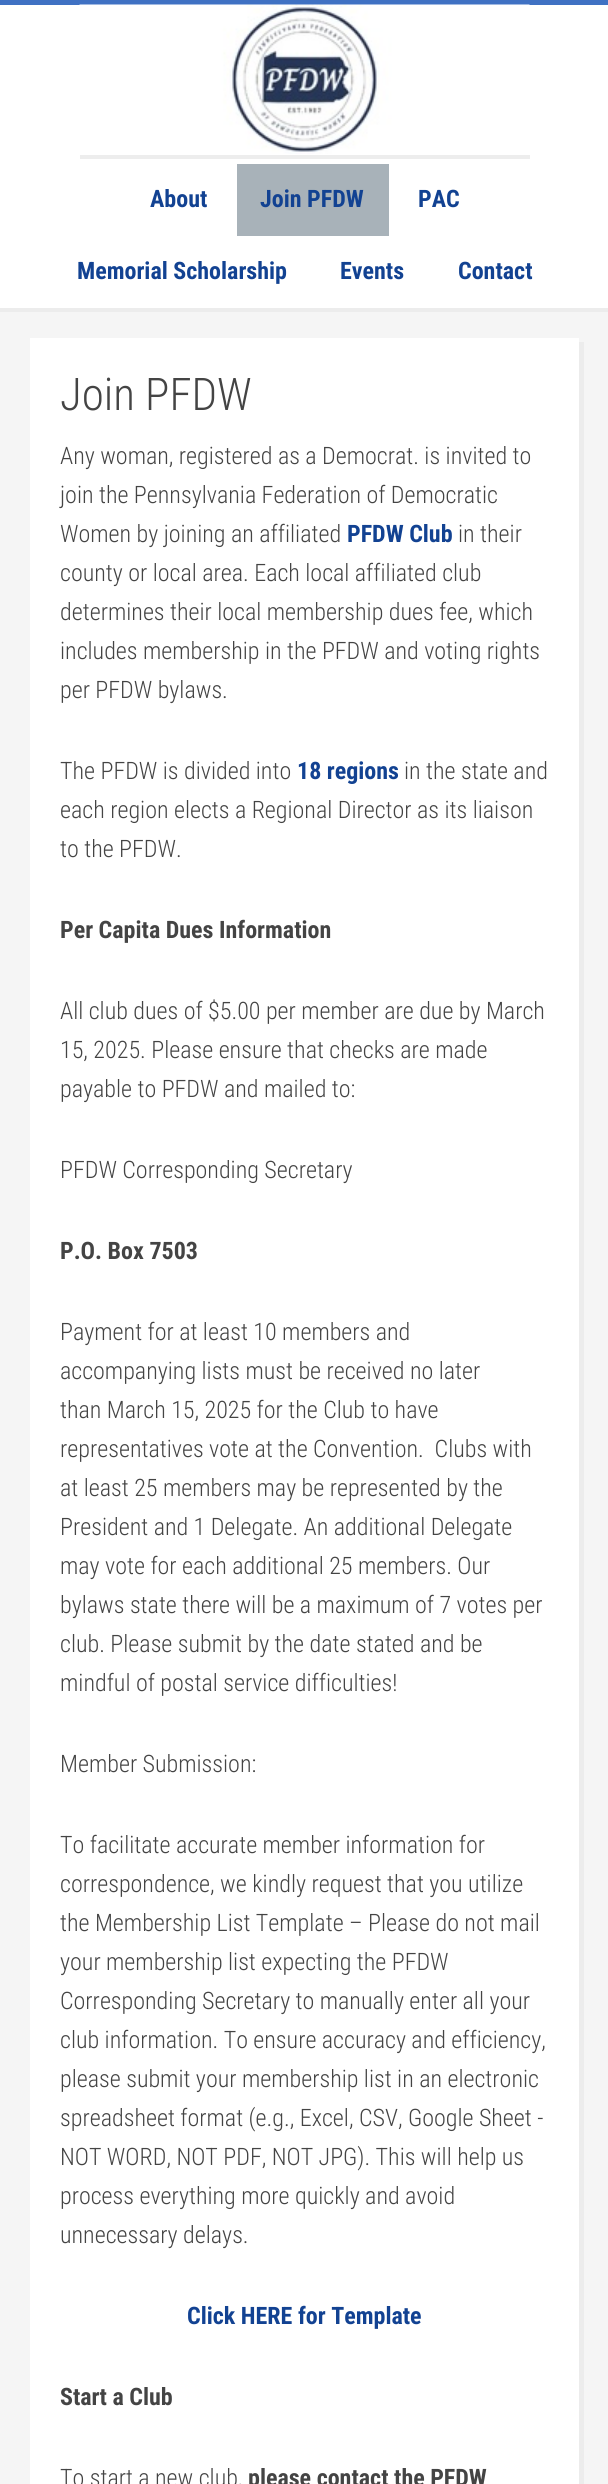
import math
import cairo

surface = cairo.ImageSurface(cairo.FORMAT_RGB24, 608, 2484)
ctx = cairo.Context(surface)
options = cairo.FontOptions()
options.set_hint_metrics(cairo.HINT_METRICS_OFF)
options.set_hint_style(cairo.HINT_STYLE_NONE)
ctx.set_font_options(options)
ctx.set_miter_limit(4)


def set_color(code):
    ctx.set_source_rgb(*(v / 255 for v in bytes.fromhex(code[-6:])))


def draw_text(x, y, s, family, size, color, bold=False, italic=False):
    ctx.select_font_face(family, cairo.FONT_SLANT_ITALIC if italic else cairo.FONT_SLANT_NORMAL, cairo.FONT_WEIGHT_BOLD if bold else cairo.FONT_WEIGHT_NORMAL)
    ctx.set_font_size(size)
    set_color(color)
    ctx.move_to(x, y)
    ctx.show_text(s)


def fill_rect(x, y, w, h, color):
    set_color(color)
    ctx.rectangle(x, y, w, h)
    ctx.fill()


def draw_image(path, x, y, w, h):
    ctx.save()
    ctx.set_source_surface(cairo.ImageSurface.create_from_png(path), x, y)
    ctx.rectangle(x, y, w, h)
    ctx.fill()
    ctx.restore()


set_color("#f5f5f5")
ctx.paint()
fill_rect(0, 308, 608, 4, "#ececec")
fill_rect(0, 5, 608, 303, "#ffffff")
fill_rect(0, 0, 608, 5, "#3f71c3")
set_color("#ededed")
ctx.new_path()
ctx.move_to(80, 154)
ctx.line_to(80, 159)
ctx.line_to(530, 159)
ctx.line_to(530, 9)
ctx.line_to(530, 154)
ctx.close_path()
ctx.fill()
fill_rect(80, 154, 450, 1, "#ffffff")
draw_image("assets/img1.png", 79, 4, 451, 150)
draw_text(150, 207, "About", "Roboto Condensed", 24, "#124292", bold=True)
fill_rect(237, 164, 152, 72, "#a8b2b9")
draw_text(260, 207, "Join PFDW", "Roboto Condensed", 24, "#124292", bold=True)
draw_text(418, 207, "PAC", "Roboto Condensed", 24, "#124292", bold=True)
draw_text(77, 279, "Memorial Scholarship", "Roboto Condensed", 24, "#124292", bold=True)
draw_text(340, 279, "Events", "Roboto Condensed", 24, "#124292", bold=True)
draw_text(458, 279, "Contact", "Roboto Condensed", 24, "#124292", bold=True)
set_color("#ececec")
ctx.new_path()
ctx.move_to(35, 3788)
ctx.line_to(35, 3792)
ctx.line_to(584, 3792)
ctx.line_to(584, 342)
ctx.line_to(579, 342)
ctx.line_to(579, 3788)
ctx.close_path()
ctx.fill()
fill_rect(30, 338, 549, 2146, "#ffffff")
draw_text(60, 410, "Join PFDW", "Roboto Condensed Light", 45, "#444444")
draw_text(60, 464, "Any woman, registered as a Democrat. is invited to", "Roboto Condensed Light", 24, "#444444")
draw_text(60, 503, "join the Pennsylvania Federation of Democratic", "Roboto Condensed Light", 24, "#444444")
draw_text(60, 542, "Women by joining an affiliated", "Roboto Condensed Light", 24, "#444444")
draw_text(347, 542, "PFDW Club", "Roboto Condensed", 24, "#124292", bold=True)
draw_text(458, 542, "in their", "Roboto Condensed Light", 24, "#444444")
draw_text(60, 581, "county or local area. Each local affiliated club", "Roboto Condensed Light", 24, "#444444")
draw_text(60, 620, "determines their local membership dues fee, which", "Roboto Condensed Light", 24, "#444444")
draw_text(60, 659, "includes membership in the PFDW and voting rights", "Roboto Condensed Light", 24, "#444444")
draw_text(60, 698, "per PFDW bylaws.", "Roboto Condensed Light", 24, "#444444")
draw_text(60, 779, "The PFDW is divided into", "Roboto Condensed Light", 24, "#444444")
draw_text(297, 779, "18 regions", "Roboto Condensed", 24, "#124292", bold=True)
draw_text(404, 779, "in the state and", "Roboto Condensed Light", 24, "#444444")
draw_text(60, 818, "each region elects a Regional Director as its liaison", "Roboto Condensed Light", 24, "#444444")
draw_text(60, 857, "to the PFDW.", "Roboto Condensed Light", 24, "#444444")
draw_text(60, 938, "Per Capita Dues Information", "Roboto Condensed", 24, "#444444", bold=True)
draw_text(60, 1019, "All club dues of $5.00 per member are due by March", "Roboto Condensed Light", 24, "#444444")
draw_text(60, 1058, "15, 2025. Please ensure that checks are made", "Roboto Condensed Light", 24, "#444444")
draw_text(60, 1097, "payable to PFDW and mailed to:", "Roboto Condensed Light", 24, "#444444")
draw_text(60, 1178, "PFDW Corresponding Secretary", "Roboto Condensed Light", 24, "#444444")
draw_text(60, 1259, "P.O. Box 7503", "Roboto Condensed", 24, "#444444", bold=True)
draw_text(60, 1340, "Payment for at least 10 members and", "Roboto Condensed Light", 24, "#444444")
draw_text(60, 1379, "accompanying lists must be received no later", "Roboto Condensed Light", 24, "#444444")
draw_text(60, 1418, "than March 15, 2025 for the Club to have", "Roboto Condensed Light", 24, "#444444")
draw_text(60, 1457, "representatives vote at the Convention.  Clubs with", "Roboto Condensed Light", 24, "#444444")
draw_text(60, 1496, "at least 25 members may be represented by the", "Roboto Condensed Light", 24, "#444444")
draw_text(60, 1535, "President and 1 Delegate. An additional Delegate", "Roboto Condensed Light", 24, "#444444")
draw_text(60, 1574, "may vote for each additional 25 members. Our", "Roboto Condensed Light", 24, "#444444")
draw_text(60, 1613, "bylaws state there will be a maximum of 7 votes per", "Roboto Condensed Light", 24, "#444444")
draw_text(60, 1652, "club. Please submit by the date stated and be", "Roboto Condensed Light", 24, "#444444")
draw_text(60, 1691, "mindful of postal service difficulties!", "Roboto Condensed Light", 24, "#444444")
draw_text(60, 1772, "Member Submission:", "Roboto Condensed Light", 24, "#444444")
draw_text(60, 1853, "To facilitate accurate member information for", "Roboto Condensed Light", 24, "#444444")
draw_text(60, 1892, "correspondence, we kindly request that you utilize", "Roboto Condensed Light", 24, "#444444")
draw_text(60, 1931, "the Membership List Template – Please do not mail", "Roboto Condensed Light", 24, "#444444")
draw_text(60, 1970, "your membership list expecting the PFDW", "Roboto Condensed Light", 24, "#444444")
draw_text(60, 2009, "Corresponding Secretary to manually enter all your", "Roboto Condensed Light", 24, "#444444")
draw_text(60, 2048, "club information. To ensure accuracy and efficiency,", "Roboto Condensed Light", 24, "#444444")
draw_text(60, 2087, "please submit your membership list in an electronic", "Roboto Condensed Light", 24, "#444444")
draw_text(60, 2126, "spreadsheet format (e.g., Excel, CSV, Google Sheet -", "Roboto Condensed Light", 24, "#444444")
draw_text(60, 2165, "NOT WORD, NOT PDF, NOT JPG). This will help us", "Roboto Condensed Light", 24, "#444444")
draw_text(60, 2204, "process everything more quickly and avoid", "Roboto Condensed Light", 24, "#444444")
draw_text(60, 2243, "unnecessary delays.", "Roboto Condensed Light", 24, "#444444")
draw_text(187, 2324, "Click HERE for Template", "Roboto Condensed", 24, "#124292", bold=True)
draw_text(60, 2405, "Start a Club", "Roboto Condensed", 24, "#444444", bold=True)
draw_text(60, 2486, "To start a new club,", "Roboto Condensed Light", 24, "#444444")
draw_text(248, 2486, "please contact the PFDW", "Roboto Condensed", 24, "#444444", bold=True)
surface.write_to_png("output.png")
